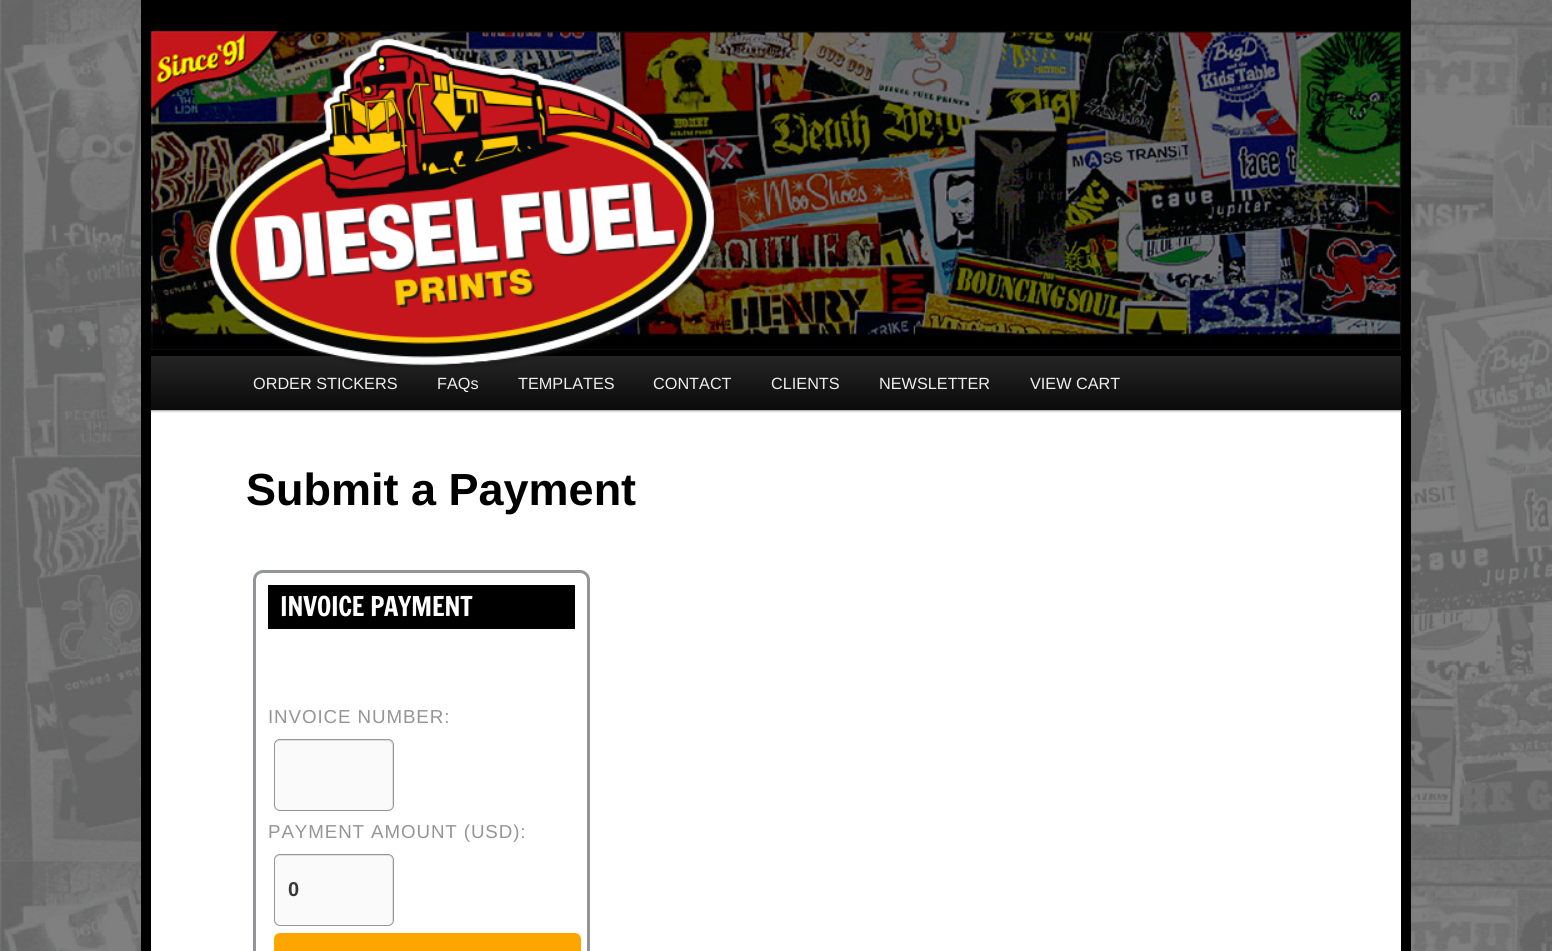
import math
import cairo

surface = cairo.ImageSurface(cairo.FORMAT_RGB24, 1552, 951)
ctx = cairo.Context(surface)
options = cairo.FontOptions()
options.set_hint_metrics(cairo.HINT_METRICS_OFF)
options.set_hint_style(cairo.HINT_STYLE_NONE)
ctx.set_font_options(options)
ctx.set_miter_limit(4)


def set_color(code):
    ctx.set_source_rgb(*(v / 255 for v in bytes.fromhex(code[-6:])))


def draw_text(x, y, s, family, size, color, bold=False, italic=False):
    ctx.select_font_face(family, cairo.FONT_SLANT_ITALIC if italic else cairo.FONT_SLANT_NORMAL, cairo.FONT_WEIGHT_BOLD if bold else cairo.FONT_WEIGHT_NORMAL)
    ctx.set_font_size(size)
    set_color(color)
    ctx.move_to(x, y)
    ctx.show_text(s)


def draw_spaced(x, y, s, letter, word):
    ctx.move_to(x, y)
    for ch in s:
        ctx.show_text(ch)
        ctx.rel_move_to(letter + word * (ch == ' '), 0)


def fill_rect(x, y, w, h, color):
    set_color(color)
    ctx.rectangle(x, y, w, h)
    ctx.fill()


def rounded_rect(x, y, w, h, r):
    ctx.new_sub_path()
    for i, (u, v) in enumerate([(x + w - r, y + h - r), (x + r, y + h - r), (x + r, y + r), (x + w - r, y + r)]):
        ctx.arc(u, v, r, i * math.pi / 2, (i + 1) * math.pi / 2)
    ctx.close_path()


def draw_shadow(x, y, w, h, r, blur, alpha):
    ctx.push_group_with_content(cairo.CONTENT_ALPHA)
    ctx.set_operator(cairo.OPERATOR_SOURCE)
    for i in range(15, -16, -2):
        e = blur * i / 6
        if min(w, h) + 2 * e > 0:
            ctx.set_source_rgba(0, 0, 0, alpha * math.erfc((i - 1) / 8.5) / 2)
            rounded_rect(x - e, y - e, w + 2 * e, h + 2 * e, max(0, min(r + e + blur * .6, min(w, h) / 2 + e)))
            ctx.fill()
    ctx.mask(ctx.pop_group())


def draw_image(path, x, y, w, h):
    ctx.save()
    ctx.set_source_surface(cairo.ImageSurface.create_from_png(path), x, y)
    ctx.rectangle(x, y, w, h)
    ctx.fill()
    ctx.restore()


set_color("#ffffff")
ctx.paint()
draw_image("assets/img1.png", 0, 0, 1552, 951)
fill_rect(151, 410, 1250, 541, "#ffffff")
fill_rect(151, 0, 1250, 356, "#000000")
fill_rect(1401, 0, 10, 951, "#000000")
fill_rect(141, 0, 10, 951, "#000000")
draw_image("assets/img2.png", 151, 31, 1251, 319)
set_color("#000000")
draw_shadow(151, 358, 1250, 53, 0, 1, 0.4)
gradient = cairo.LinearGradient(776, 356, 776, 410)
gradient.add_color_stop_rgba(0, 0.145, 0.145, 0.145, 1)
gradient.add_color_stop_rgba(1, 0.039, 0.039, 0.039, 1)
ctx.set_source(gradient)
ctx.rectangle(151, 356, 1250, 54)
ctx.fill()
draw_image("assets/img3.png", 208, 38, 511, 329)
draw_text(253, 389, "ORDER STICKERS", "Liberation Sans", 16.25, "#eeeeee")
draw_text(437, 389, "FAQs", "Liberation Sans", 16.25, "#eeeeee")
draw_text(518, 389, "TEMPLATES", "Liberation Sans", 16.25, "#eeeeee")
draw_text(653, 389, "CONTACT", "Liberation Sans", 16.25, "#eeeeee")
draw_text(771, 389, "CLIENTS", "Liberation Sans", 16.25, "#eeeeee")
draw_text(879, 389, "NEWSLETTER", "Liberation Sans", 16.25, "#eeeeee")
draw_text(1030, 389, "VIEW CART", "Liberation Sans", 16.25, "#eeeeee")
draw_text(246, 505, "Submit a Payment", "Liberation Sans", 45, "#000000", bold=True)
rounded_rect(254.5, 571.5, 334, 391, 8.5)
set_color("#949598")
ctx.set_line_width(3)
ctx.stroke()
fill_rect(268, 585, 307, 44, "#000000")
ctx.select_font_face("Francois One")
ctx.set_font_size(26.75)
set_color("#ffffff")
draw_spaced(280, 616, "INVOICE PAYMENT", -0.5, 0)
ctx.select_font_face("Liberation Sans")
ctx.set_font_size(18.75)
set_color("#949598")
draw_spaced(268, 723, "INVOICE NUMBER:", 0.9, 0)
set_color("#fafafa")
rounded_rect(274, 739, 120, 72, 6)
ctx.fill()
set_color("#e1e1e1")
ctx.new_path()
ctx.move_to(280, 741)
ctx.line_to(388, 741)
ctx.curve_to(390, 741, 392, 743, 392, 746)
ctx.line_to(392, 806)
ctx.line_to(391, 809)
ctx.curve_to(392, 808, 393, 806, 393, 805)
ctx.line_to(393, 745)
ctx.curve_to(393, 742, 391, 740, 388, 740)
ctx.line_to(280, 740)
ctx.curve_to(277, 740, 275, 742, 275, 745)
ctx.line_to(275, 746)
ctx.curve_to(275, 743, 277, 741, 280, 741)
ctx.close_path()
ctx.fill()
rounded_rect(274.5, 739.5, 119, 71, 5.5)
set_color("#949598")
ctx.set_line_width(1)
ctx.stroke()
draw_spaced(268, 838, "PAYMENT AMOUNT (USD):", 0.9, 0)
set_color("#fafafa")
rounded_rect(274, 854, 120, 72, 6)
ctx.fill()
set_color("#e1e1e1")
ctx.new_path()
ctx.move_to(280, 856)
ctx.line_to(388, 856)
ctx.curve_to(390, 856, 392, 858, 392, 861)
ctx.line_to(392, 921)
ctx.line_to(391, 924)
ctx.curve_to(392, 923, 393, 921, 393, 920)
ctx.line_to(393, 860)
ctx.curve_to(393, 857, 391, 855, 388, 855)
ctx.line_to(280, 855)
ctx.curve_to(277, 855, 275, 857, 275, 860)
ctx.line_to(275, 861)
ctx.curve_to(275, 858, 277, 856, 280, 856)
ctx.close_path()
ctx.fill()
rounded_rect(274.5, 854.5, 119, 71, 5.5)
set_color("#949598")
ctx.stroke()
draw_text(288, 896, "0", "Liberation Sans", 20, "#373737", bold=True)
set_color("#ffa500")
rounded_rect(274, 933, 307, 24, 6)
ctx.fill()
surface.write_to_png("output.png")
